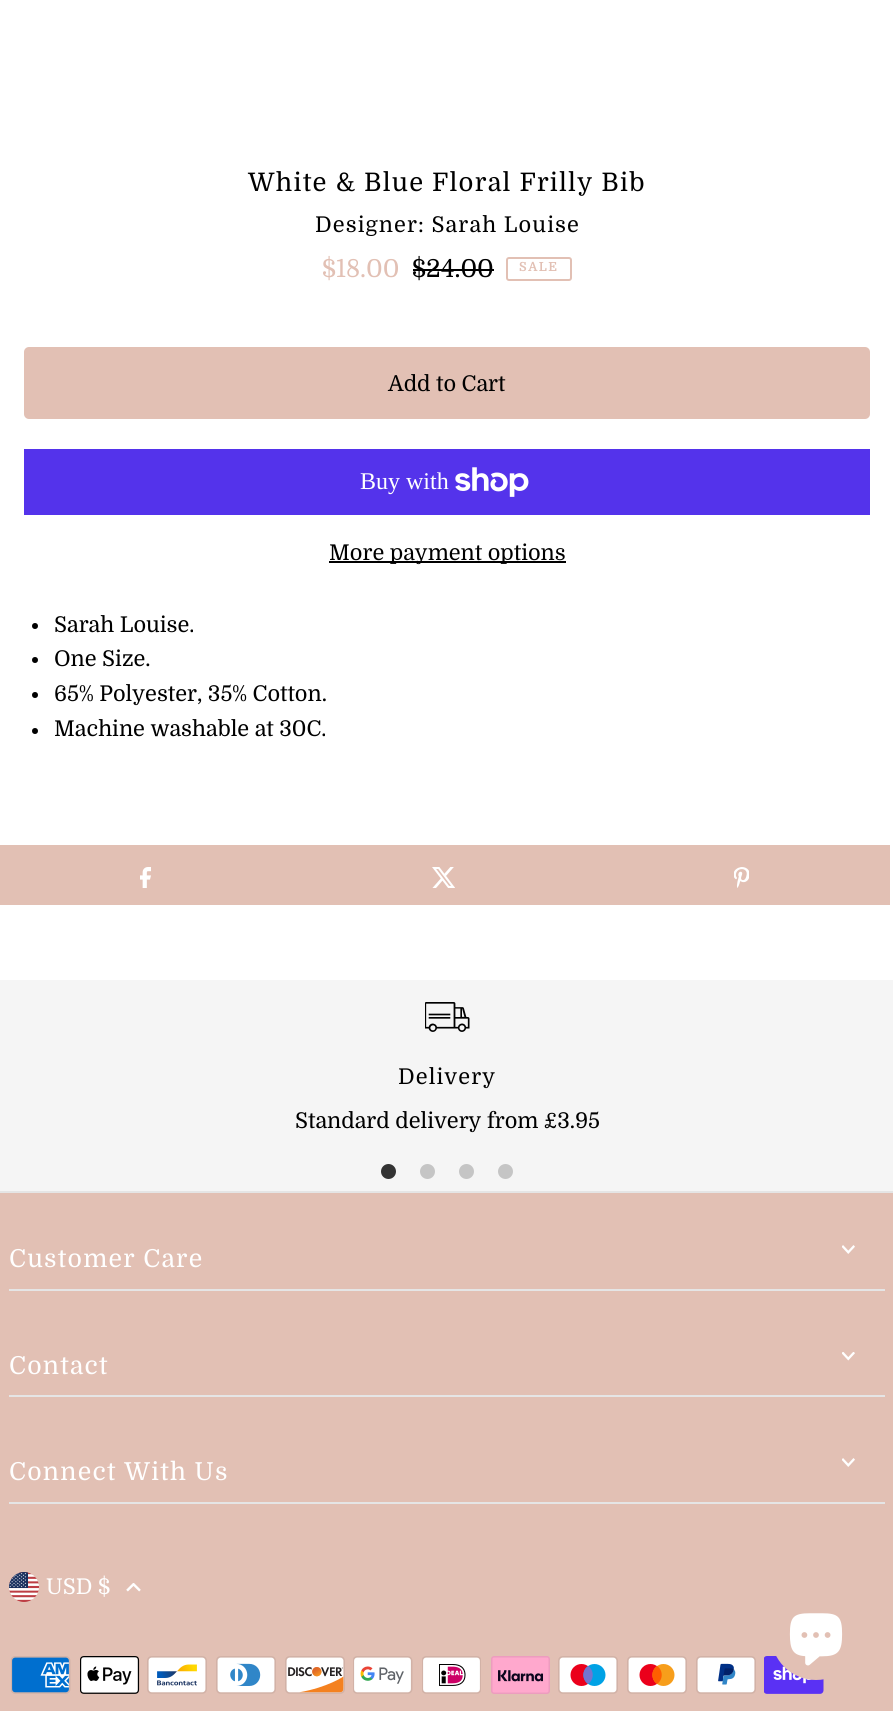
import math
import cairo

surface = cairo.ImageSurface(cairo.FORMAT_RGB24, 893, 1711)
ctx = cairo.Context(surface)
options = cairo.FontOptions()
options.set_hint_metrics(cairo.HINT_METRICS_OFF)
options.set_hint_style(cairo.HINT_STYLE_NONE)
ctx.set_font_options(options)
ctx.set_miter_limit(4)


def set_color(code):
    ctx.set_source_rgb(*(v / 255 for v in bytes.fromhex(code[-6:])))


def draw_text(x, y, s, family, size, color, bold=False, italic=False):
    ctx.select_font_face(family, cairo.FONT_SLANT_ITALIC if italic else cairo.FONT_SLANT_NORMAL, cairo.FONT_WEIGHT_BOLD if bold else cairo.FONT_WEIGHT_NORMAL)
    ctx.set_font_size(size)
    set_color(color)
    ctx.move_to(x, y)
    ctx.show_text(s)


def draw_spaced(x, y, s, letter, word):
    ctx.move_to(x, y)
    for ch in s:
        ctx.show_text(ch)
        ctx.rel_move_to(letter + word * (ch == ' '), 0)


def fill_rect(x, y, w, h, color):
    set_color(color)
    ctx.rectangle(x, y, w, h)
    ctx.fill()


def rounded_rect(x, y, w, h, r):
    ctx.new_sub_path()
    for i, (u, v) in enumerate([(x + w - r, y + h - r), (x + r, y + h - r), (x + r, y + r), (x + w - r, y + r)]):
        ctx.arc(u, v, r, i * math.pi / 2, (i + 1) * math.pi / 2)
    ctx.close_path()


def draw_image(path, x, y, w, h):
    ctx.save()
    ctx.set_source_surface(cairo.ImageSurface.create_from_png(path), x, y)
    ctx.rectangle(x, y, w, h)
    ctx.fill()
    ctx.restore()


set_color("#ffffff")
ctx.paint()
ctx.select_font_face("Domine")
ctx.set_font_size(25.5)
set_color("#000000")
draw_spaced(248, 191, "White & Blue Floral Frilly Bib", 1.25, 0)
ctx.set_font_size(21.7)
draw_spaced(315, 232, "Designer: Sarah Louise", 1.1, 0)
draw_text(322, 277, "$18.00", "Domine", 24.75, "#e2c0b4")
draw_text(412, 277, "$24.00", "Domine", 24.75, "#000000")
fill_rect(413, 269, 81, 2, "#000000")
rounded_rect(507, 258, 64, 22, 2)
set_color("#e2c0b4")
ctx.stroke()
ctx.select_font_face("Domine", cairo.FONT_SLANT_NORMAL, cairo.FONT_WEIGHT_BOLD)
ctx.set_font_size(12.5)
draw_spaced(519, 271, "SALE", 1.5, 0)
rounded_rect(24, 347, 846, 72, 5)
ctx.fill()
draw_text(388, 391, "Add to Cart", "Domine", 21.7, "#000000")
fill_rect(24, 449, 846, 66, "#5433eb")
draw_text(360, 489, "Buy with", "Liberation Serif", 24, "#ffffff")
draw_image("assets/img1.png", 455, 467, 74, 30)
fill_rect(329, 561, 237, 2, "#000000")
draw_text(329, 560, "More payment options", "Domine", 21.7, "#000000")
ctx.new_path()
ctx.arc(35, 626, 3, 0, 2 * math.pi)
ctx.fill()
draw_text(54, 632, "Sarah Louise.", "Domine", 21.7, "#000000")
ctx.new_path()
ctx.arc(35, 660, 3, 0, 2 * math.pi)
ctx.fill()
draw_text(54, 666, "One Size.", "Domine", 21.7, "#000000")
ctx.new_path()
ctx.arc(35, 695, 3, 0, 2 * math.pi)
ctx.fill()
draw_text(54, 701, "65% Polyester, 35% Cotton.", "Domine", 21.7, "#000000")
ctx.new_path()
ctx.arc(35, 731, 3, 0, 2 * math.pi)
ctx.fill()
draw_text(54, 736, "Machine washable at 30C.", "Domine", 21.7, "#000000")
fill_rect(0, 845, 890, 60, "#e2c0b4")
draw_image("assets/img2.png", 140, 867, 11, 21)
draw_image("assets/img3.png", 432, 867, 23, 21)
draw_image("assets/img4.png", 734, 867, 15, 21)
fill_rect(0, 980, 893, 211, "#f5f5f5")
draw_image("assets/img5.png", 425, 1002, 45, 30)
set_color("#000000")
draw_spaced(398, 1084, "Delivery", 1.1, 0)
draw_text(295, 1128, "Standard delivery from £3.95", "Domine", 21.7, "#000000")
set_color("#333333")
ctx.new_path()
ctx.arc(388.5, 1171.5, 7.5, 0, 2 * math.pi)
ctx.fill()
set_color("#c5c5c5")
ctx.arc(427.5, 1171.5, 7.5, 0, 2 * math.pi)
ctx.fill()
ctx.arc(466.5, 1171.5, 7.5, 0, 2 * math.pi)
ctx.fill()
ctx.arc(505.5, 1171.5, 7.5, 0, 2 * math.pi)
ctx.fill()
fill_rect(0, 1193, 893, 518, "#e2c0b4")
fill_rect(0, 1191, 893, 2, "#e5e5e5")
fill_rect(9, 1289, 876, 2, "#e5e5e5")
ctx.set_font_size(24.75)
set_color("#ffffff")
draw_spaced(9, 1267, "Customer Care", 1.25, 0)
draw_image("assets/img6.png", 842, 1245, 13, 9)
fill_rect(9, 1395, 876, 2, "#e5e5e5")
set_color("#ffffff")
draw_spaced(9, 1374, "Contact", 1.25, 0)
draw_image("assets/img7.png", 842, 1352, 13, 9)
fill_rect(9, 1502, 876, 2, "#e5e5e5")
set_color("#ffffff")
draw_spaced(9, 1480, "Connect With Us", 1.25, 0)
draw_image("assets/img6.png", 842, 1458, 13, 9)
draw_image("assets/img8.png", 9, 1572, 30, 30)
draw_text(46, 1594, "USD $", "Domine", 21.7, "#ffffff")
draw_image("assets/img9.png", 126, 1583, 15, 9)
draw_image("assets/img10.png", 11, 1656, 60, 38)
draw_image("assets/img11.png", 80, 1656, 60, 38)
draw_image("assets/img12.png", 147, 1656, 60, 38)
draw_image("assets/img13.png", 216, 1656, 60, 38)
draw_image("assets/img14.png", 285, 1656, 60, 38)
draw_image("assets/img15.png", 353, 1656, 60, 38)
draw_image("assets/img16.png", 422, 1656, 59, 38)
draw_image("assets/img17.png", 491, 1656, 59, 38)
draw_image("assets/img18.png", 558, 1656, 60, 38)
draw_image("assets/img19.png", 627, 1656, 60, 38)
draw_image("assets/img20.png", 696, 1656, 60, 38)
draw_image("assets/img21.png", 764, 1656, 60, 38)
set_color("#e2c0b4")
ctx.arc(816, 1635, 45, 0, 2 * math.pi)
ctx.fill()
draw_image("assets/img22.png", 789, 1613, 54, 53)
surface.write_to_png("output.png")
